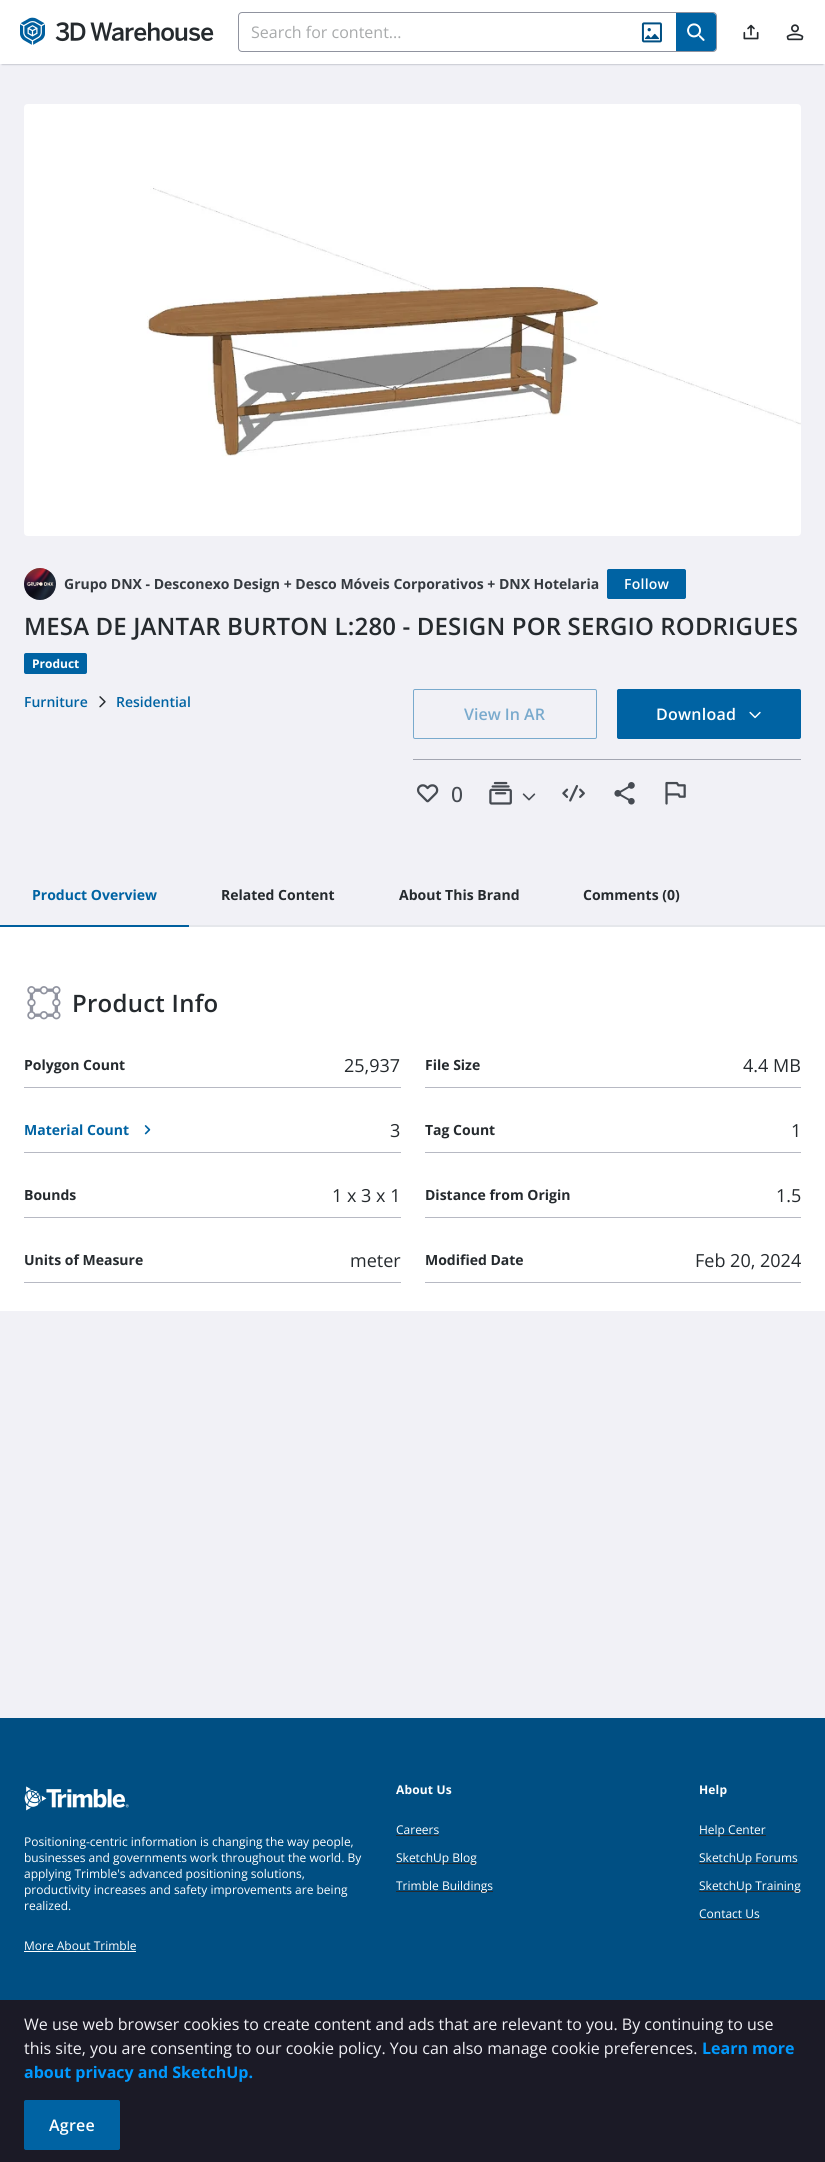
import math
import cairo

surface = cairo.ImageSurface(cairo.FORMAT_RGB24, 825, 2162)
ctx = cairo.Context(surface)
options = cairo.FontOptions()
options.set_hint_metrics(cairo.HINT_METRICS_OFF)
options.set_hint_style(cairo.HINT_STYLE_NONE)
ctx.set_font_options(options)
ctx.set_miter_limit(4)


def set_color(code):
    ctx.set_source_rgb(*(v / 255 for v in bytes.fromhex(code[-6:])))


def draw_text(x, y, s, family, size, color, bold=False, italic=False):
    ctx.select_font_face(family, cairo.FONT_SLANT_ITALIC if italic else cairo.FONT_SLANT_NORMAL, cairo.FONT_WEIGHT_BOLD if bold else cairo.FONT_WEIGHT_NORMAL)
    ctx.set_font_size(size)
    set_color(color)
    ctx.move_to(x, y)
    ctx.show_text(s)


def draw_spaced(x, y, s, letter, word):
    ctx.move_to(x, y)
    for ch in s:
        ctx.show_text(ch)
        ctx.rel_move_to(letter + word * (ch == ' '), 0)


def fill_rect(x, y, w, h, color):
    set_color(color)
    ctx.rectangle(x, y, w, h)
    ctx.fill()


def rounded_rect(x, y, w, h, r):
    ctx.new_sub_path()
    for i, (u, v) in enumerate([(x + w - r, y + h - r), (x + r, y + h - r), (x + r, y + r), (x + w - r, y + r)]):
        ctx.arc(u, v, r, i * math.pi / 2, (i + 1) * math.pi / 2)
    ctx.close_path()


def draw_shadow(x, y, w, h, r, blur, alpha):
    ctx.push_group_with_content(cairo.CONTENT_ALPHA)
    ctx.set_operator(cairo.OPERATOR_SOURCE)
    for i in range(15, -16, -2):
        e = blur * i / 6
        if min(w, h) + 2 * e > 0:
            ctx.set_source_rgba(0, 0, 0, alpha * math.erfc((i - 1) / 8.5) / 2)
            rounded_rect(x - e, y - e, w + 2 * e, h + 2 * e, max(0, min(r + e + blur * .6, min(w, h) / 2 + e)))
            ctx.fill()
    ctx.mask(ctx.pop_group())


def draw_image(path, x, y, w, h):
    ctx.save()
    ctx.set_source_surface(cairo.ImageSurface.create_from_png(path), x, y)
    ctx.rectangle(x, y, w, h)
    ctx.fill()
    ctx.restore()


set_color("#f1f1f6")
ctx.paint()
set_color("#90939f")
draw_shadow(2, 4, 821, 60, 0, 1, 1)
fill_rect(0, 0, 825, 64, "#ffffff")
draw_image("assets/img1.png", 20, 17, 25, 28)
draw_image("assets/img2.png", 55, 22, 159, 20)
rounded_rect(238.5, 12.5, 478, 39, 3.5)
set_color("#90939f")
ctx.set_line_width(1)
ctx.stroke()
draw_text(251, 38, "Search for content...", "Open Sans", 16, "#a8aaab")
draw_image("assets/img3.png", 641, 22, 21, 21)
set_color("#0063a3")
ctx.new_path()
ctx.move_to(676, 13)
ctx.line_to(713, 13)
ctx.curve_to(714.5, 13, 716, 14.5, 716, 16)
ctx.line_to(716, 48)
ctx.curve_to(716, 49.5, 714.5, 51, 713, 51)
ctx.line_to(676, 51)
ctx.close_path()
ctx.fill()
draw_image("assets/img4.png", 687, 23, 18, 18)
draw_image("assets/img5.png", 743, 24, 16, 16)
draw_image("assets/img6.png", 786, 24, 18, 17)
draw_image("assets/img7.png", 24, 104, 777, 432)
draw_image("assets/img8.png", 24, 568, 32, 32)
draw_text(64, 589, "Grupo DNX - Desconexo Design + Desco Móveis Corporativos + DNX Hotelaria", "Open Sans", 14, "#353a40", bold=True)
set_color("#0063a3")
rounded_rect(607.5, 569.5, 78, 29, 1.5)
ctx.fill_preserve()
ctx.stroke()
ctx.select_font_face("Open Sans SemiBold")
set_color("#ffffff")
draw_spaced(624, 589, "Follow", 0.25, 0)
ctx.set_font_size(24)
set_color("#252a2e")
draw_spaced(24, 635, "MESA DE JANTAR BURTON L:280 - DESIGN POR SERGIO RODRIGUES", 0.15, 0)
set_color("#0063a3")
rounded_rect(24, 653, 63, 21, 2)
ctx.fill()
draw_text(32, 668, "Product", "Open Sans", 12, "#ffffff", bold=True)
draw_text(24, 707, "Furniture", "Open Sans SemiBold", 14, "#0063a3")
draw_image("assets/img9.png", 99, 696, 7, 12)
draw_text(116, 707, "Residential", "Open Sans SemiBold", 14, "#0063a3")
rounded_rect(413.5, 689.5, 183, 49, 1.5)
set_color("#79aacd")
ctx.stroke()
draw_text(464, 720, "View In AR", "Open Sans SemiBold", 16, "#79aacd")
set_color("#0063a3")
rounded_rect(617.5, 689.5, 183, 49, 1.5)
ctx.fill_preserve()
ctx.stroke()
set_color("#ffffff")
draw_spaced(656, 720, "Download", 0.25, 0)
draw_image("assets/img10.png", 749, 711, 12, 8)
fill_rect(413, 759, 388, 1, "#a3a6b1")
draw_image("assets/img11.png", 416, 784, 23, 19)
draw_text(451, 802, "0", "Open Sans Medium", 21, "#464b52")
draw_image("assets/img12.png", 489, 781, 23, 24)
draw_image("assets/img13.png", 522, 793, 14, 8)
draw_image("assets/img14.png", 562, 785, 23, 17)
draw_image("assets/img15.png", 614, 782, 21, 23)
draw_image("assets/img16.png", 665, 781, 21, 24)
fill_rect(712, 925, 113, 2, "#e5e7eb")
fill_rect(0, 925, 189, 2, "#005f9e")
draw_text(32, 900, "Product Overview", "Open Sans", 14, "#0063a3", bold=True)
fill_rect(189, 925, 523, 2, "#e5e7eb")
draw_text(221, 900, "Related Content", "Open Sans", 14, "#252a2e", bold=True)
draw_text(399, 900, "About This Brand", "Open Sans", 14, "#252a2e", bold=True)
draw_text(583, 900, "Comments (0)", "Open Sans", 14, "#252a2e", bold=True)
fill_rect(0, 927, 825, 384, "#ffffff")
draw_image("assets/img17.png", 27, 986, 34, 34)
ctx.select_font_face("Open Sans SemiBold")
ctx.set_font_size(24)
set_color("#252a2e")
draw_spaced(72, 1012, "Product Info", 0.25, 0)
fill_rect(24, 1087, 377, 1, "#b7b9c3")
draw_text(24, 1070, "Polygon Count", "Open Sans", 14, "#252a2e", bold=True)
draw_text(344, 1072, "25,937", "Open Sans", 18, "#252a2e")
fill_rect(425, 1087, 376, 1, "#b7b9c3")
draw_text(425, 1070, "File Size", "Open Sans", 14, "#252a2e", bold=True)
draw_text(743, 1072, "4.4 MB", "Open Sans", 18, "#252a2e")
fill_rect(24, 1152, 377, 1, "#b7b9c3")
draw_text(24, 1135, "Material Count", "Open Sans", 14, "#0063a3", bold=True)
draw_image("assets/img18.png", 144, 1125, 7, 10)
draw_text(390, 1137, "3", "Open Sans", 18, "#252a2e")
fill_rect(425, 1152, 376, 1, "#b7b9c3")
draw_text(425, 1135, "Tag Count", "Open Sans", 14, "#252a2e", bold=True)
draw_text(791, 1137, "1", "Open Sans", 18, "#252a2e")
fill_rect(24, 1217, 377, 1, "#b7b9c3")
draw_text(24, 1200, "Bounds", "Open Sans", 14, "#252a2e", bold=True)
draw_text(332, 1202, "1 x 3 x 1", "Open Sans", 18, "#252a2e")
fill_rect(425, 1217, 376, 1, "#b7b9c3")
draw_text(425, 1200, "Distance from Origin", "Open Sans", 14, "#252a2e", bold=True)
draw_text(776, 1202, "1.5", "Open Sans", 18, "#252a2e")
fill_rect(24, 1282, 377, 1, "#b7b9c3")
draw_text(24, 1265, "Units of Measure", "Open Sans", 14, "#252a2e", bold=True)
draw_text(350, 1267, "meter", "Open Sans", 18, "#252a2e")
fill_rect(425, 1282, 376, 1, "#b7b9c3")
draw_text(425, 1265, "Modified Date", "Open Sans", 14, "#252a2e", bold=True)
draw_text(695, 1267, "Feb 20, 2024", "Open Sans", 18, "#252a2e")
fill_rect(0, 1718, 825, 282, "#004f83")
draw_image("assets/img19.png", 24, 1786, 105, 25)
draw_text(24, 1846, "Positioning-centric information is changing the way people,", "Open Sans", 12, "#ffffff")
draw_text(24, 1862, "businesses and governments work throughout the world. By", "Open Sans", 12, "#ffffff")
draw_text(24, 1878, "applying Trimble's advanced positioning solutions,", "Open Sans", 12, "#ffffff")
draw_text(24, 1894, "productivity increases and safety improvements are being", "Open Sans", 12, "#ffffff")
draw_text(24, 1910, "realized.", "Open Sans", 12, "#ffffff")
draw_text(24, 1950, "More About Trimble", "Open Sans", 12, "#ffffff")
fill_rect(24, 1951, 112, 1, "#ffffff")
ctx.select_font_face("Open Sans", cairo.FONT_SLANT_NORMAL, cairo.FONT_WEIGHT_BOLD)
draw_spaced(396, 1794, "About Us", 0.15, 0)
draw_text(396, 1834, "Careers", "Open Sans", 12, "#ffffff")
fill_rect(396, 1835, 43, 1, "#252a2e")
fill_rect(396, 1863, 81, 1, "#252a2e")
draw_text(396, 1862, "SketchUp Blog", "Open Sans", 12, "#ffffff")
fill_rect(396, 1891, 97, 1, "#252a2e")
draw_text(396, 1890, "Trimble Buildings", "Open Sans", 12, "#ffffff")
ctx.select_font_face("Open Sans", cairo.FONT_SLANT_NORMAL, cairo.FONT_WEIGHT_BOLD)
draw_spaced(699, 1794, "Help", 0.15, 0)
fill_rect(699, 1835, 67, 1, "#252a2e")
draw_text(699, 1834, "Help Center", "Open Sans", 12, "#ffffff")
fill_rect(699, 1863, 99, 1, "#252a2e")
draw_text(699, 1862, "SketchUp Forums", "Open Sans", 12, "#ffffff")
fill_rect(699, 1891, 102, 1, "#252a2e")
draw_text(699, 1890, "SketchUp Training", "Open Sans", 12, "#ffffff")
draw_text(699, 1918, "Contact Us", "Open Sans", 12, "#ffffff")
fill_rect(699, 1919, 61, 1, "#252a2e")
fill_rect(0, 2000, 825, 162, "#1b1a26")
draw_text(24, 2030, "We use web browser cookies to create content and ads that are relevant to you. By continuing to use", "Open Sans", 16, "#f1f1f6")
draw_text(24, 2054, "this site, you are consenting to our cookie policy. You can also manage cookie preferences.", "Open Sans", 16, "#f1f1f6")
draw_text(702, 2054, "Learn more", "Open Sans", 16, "#0099fe", bold=True)
draw_text(24, 2078, "about privacy and SketchUp.", "Open Sans", 16, "#0099fe", bold=True)
set_color("#0063a3")
rounded_rect(24.5, 2100.5, 95, 49, 1.5)
ctx.fill_preserve()
ctx.stroke()
ctx.select_font_face("Open Sans SemiBold")
set_color("#ffffff")
draw_spaced(49, 2131, "Agree", 0.25, 0)
surface.write_to_png("output.png")
